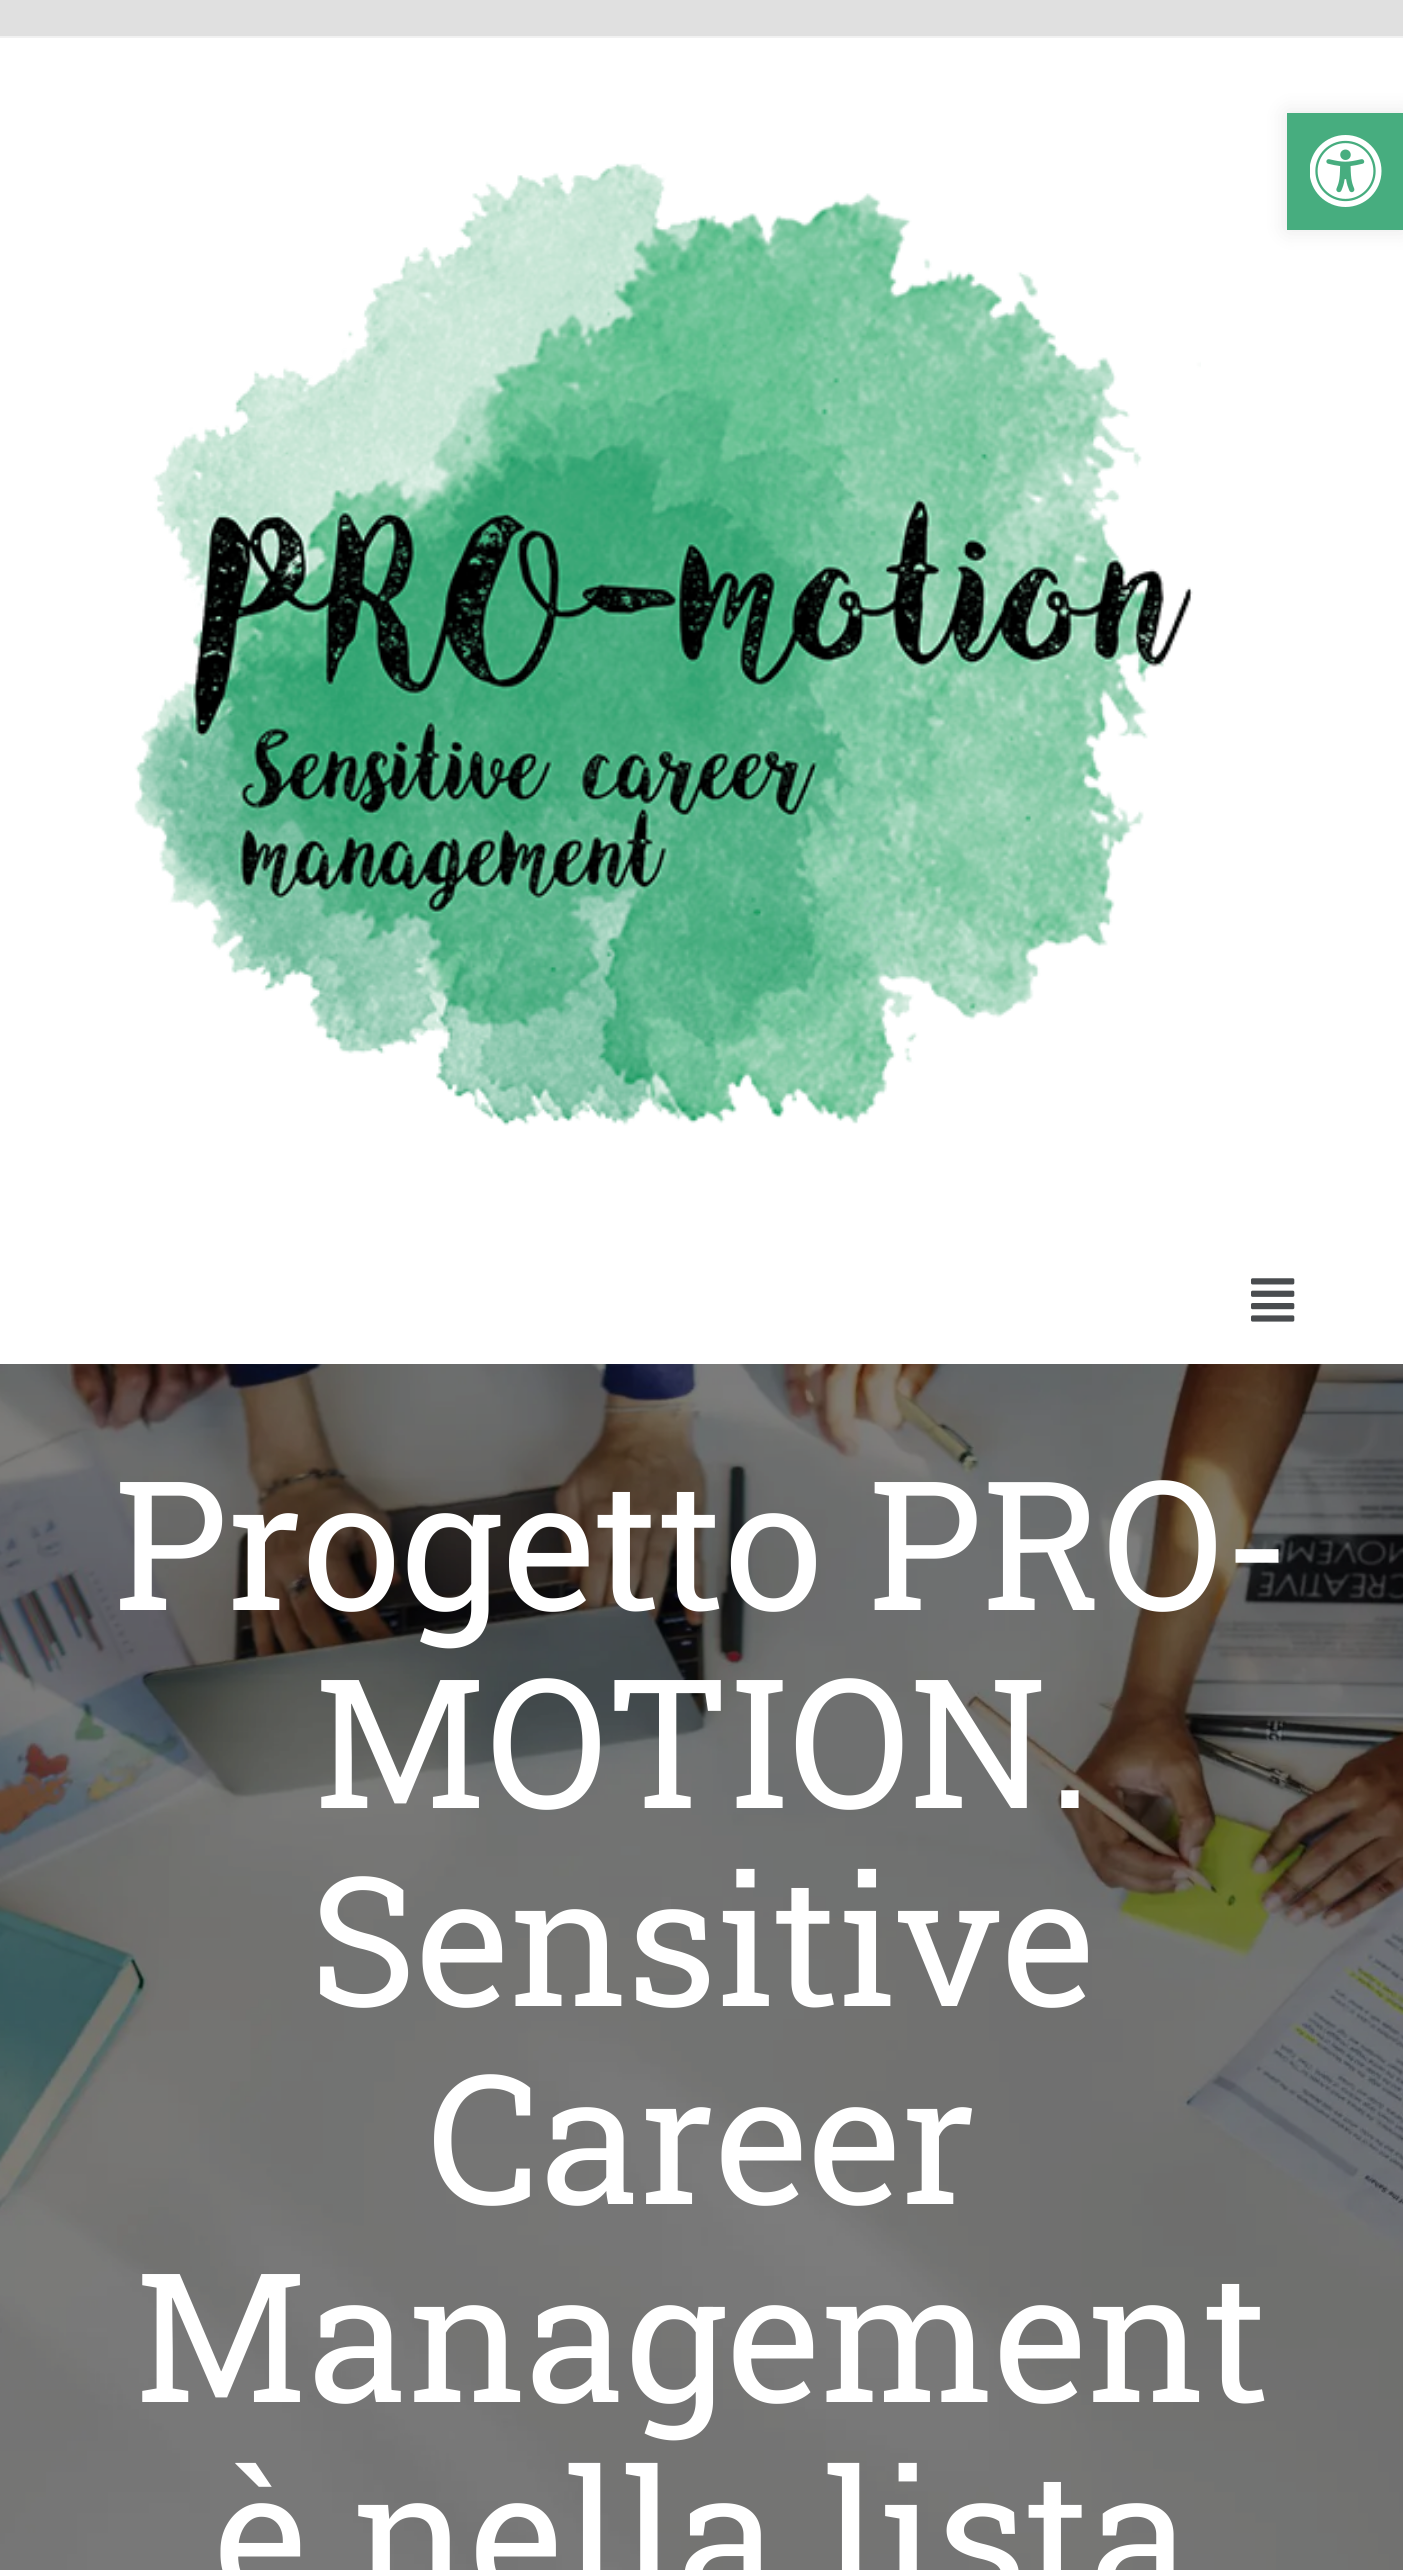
import math
import cairo

surface = cairo.ImageSurface(cairo.FORMAT_RGB24, 1403, 2570)
ctx = cairo.Context(surface)
options = cairo.FontOptions()
options.set_hint_metrics(cairo.HINT_METRICS_OFF)
options.set_hint_style(cairo.HINT_STYLE_NONE)
ctx.set_font_options(options)
ctx.set_miter_limit(4)


def set_color(code):
    ctx.set_source_rgb(*(v / 255 for v in bytes.fromhex(code[-6:])))


def draw_text(x, y, s, family, size, color, bold=False, italic=False):
    ctx.select_font_face(family, cairo.FONT_SLANT_ITALIC if italic else cairo.FONT_SLANT_NORMAL, cairo.FONT_WEIGHT_BOLD if bold else cairo.FONT_WEIGHT_NORMAL)
    ctx.set_font_size(size)
    set_color(color)
    ctx.move_to(x, y)
    ctx.show_text(s)


def fill_rect(x, y, w, h, color):
    set_color(color)
    ctx.rectangle(x, y, w, h)
    ctx.fill()


def rounded_rect(x, y, w, h, r):
    ctx.new_sub_path()
    for i, (u, v) in enumerate([(x + w - r, y + h - r), (x + r, y + h - r), (x + r, y + r), (x + w - r, y + r)]):
        ctx.arc(u, v, r, i * math.pi / 2, (i + 1) * math.pi / 2)
    ctx.close_path()


def draw_shadow(x, y, w, h, r, blur, alpha):
    ctx.push_group_with_content(cairo.CONTENT_ALPHA)
    ctx.set_operator(cairo.OPERATOR_SOURCE)
    for i in range(15, -16, -2):
        e = blur * i / 6
        if min(w, h) + 2 * e > 0:
            ctx.set_source_rgba(0, 0, 0, alpha * math.erfc((i - 1) / 8.5) / 2)
            rounded_rect(x - e, y - e, w + 2 * e, h + 2 * e, max(0, min(r + e + blur * .6, min(w, h) / 2 + e)))
            ctx.fill()
    ctx.mask(ctx.pop_group())


def draw_image(path, x, y, w, h):
    ctx.save()
    ctx.set_source_surface(cairo.ImageSurface.create_from_png(path), x, y)
    ctx.rectangle(x, y, w, h)
    ctx.fill()
    ctx.restore()


set_color("#ffffff")
ctx.paint()
set_color("#000000")
draw_shadow(1287, 113, 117, 117, 0, 11, 0.1)
fill_rect(1287, 113, 116, 117, "#47ad7f")
draw_image("assets/img1.png", 1310, 135, 72, 72)
fill_rect(0, 0, 1403, 36, "#e0e0e0")
fill_rect(0, 36, 1403, 2, "#f1f1f1")
draw_image("assets/img2.png", 134, 163, 1067, 963)
draw_image("assets/img3.png", 1251, 1278, 44, 44)
draw_image("assets/img4.png", 0, 1364, 1403, 1206)
draw_text(113, 1610, "Progetto PRO-", "Roboto Slab", 180, "#ffffff")
draw_text(313, 1808, "MOTION.", "Roboto Slab", 180, "#ffffff")
draw_text(310, 2006, "Sensitive", "Roboto Slab", 180, "#ffffff")
draw_text(427, 2204, "Career", "Roboto Slab", 180, "#ffffff")
draw_text(134, 2402, "Management", "Roboto Slab", 180, "#ffffff")
draw_text(214, 2600, "è nella lista", "Roboto Slab", 180, "#ffffff")
surface.write_to_png("output.png")
